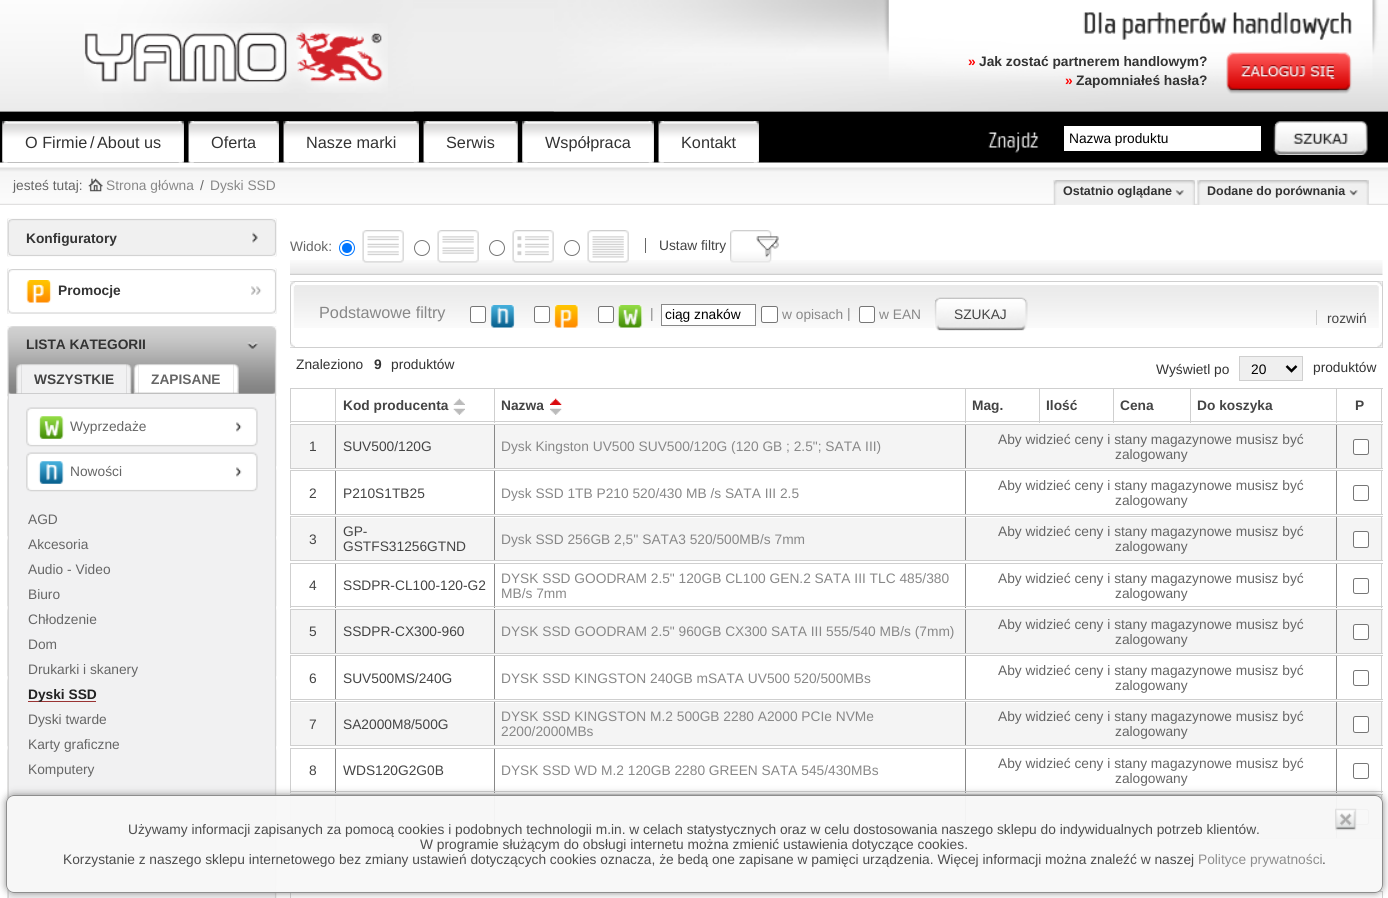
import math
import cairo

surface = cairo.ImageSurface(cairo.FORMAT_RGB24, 1388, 898)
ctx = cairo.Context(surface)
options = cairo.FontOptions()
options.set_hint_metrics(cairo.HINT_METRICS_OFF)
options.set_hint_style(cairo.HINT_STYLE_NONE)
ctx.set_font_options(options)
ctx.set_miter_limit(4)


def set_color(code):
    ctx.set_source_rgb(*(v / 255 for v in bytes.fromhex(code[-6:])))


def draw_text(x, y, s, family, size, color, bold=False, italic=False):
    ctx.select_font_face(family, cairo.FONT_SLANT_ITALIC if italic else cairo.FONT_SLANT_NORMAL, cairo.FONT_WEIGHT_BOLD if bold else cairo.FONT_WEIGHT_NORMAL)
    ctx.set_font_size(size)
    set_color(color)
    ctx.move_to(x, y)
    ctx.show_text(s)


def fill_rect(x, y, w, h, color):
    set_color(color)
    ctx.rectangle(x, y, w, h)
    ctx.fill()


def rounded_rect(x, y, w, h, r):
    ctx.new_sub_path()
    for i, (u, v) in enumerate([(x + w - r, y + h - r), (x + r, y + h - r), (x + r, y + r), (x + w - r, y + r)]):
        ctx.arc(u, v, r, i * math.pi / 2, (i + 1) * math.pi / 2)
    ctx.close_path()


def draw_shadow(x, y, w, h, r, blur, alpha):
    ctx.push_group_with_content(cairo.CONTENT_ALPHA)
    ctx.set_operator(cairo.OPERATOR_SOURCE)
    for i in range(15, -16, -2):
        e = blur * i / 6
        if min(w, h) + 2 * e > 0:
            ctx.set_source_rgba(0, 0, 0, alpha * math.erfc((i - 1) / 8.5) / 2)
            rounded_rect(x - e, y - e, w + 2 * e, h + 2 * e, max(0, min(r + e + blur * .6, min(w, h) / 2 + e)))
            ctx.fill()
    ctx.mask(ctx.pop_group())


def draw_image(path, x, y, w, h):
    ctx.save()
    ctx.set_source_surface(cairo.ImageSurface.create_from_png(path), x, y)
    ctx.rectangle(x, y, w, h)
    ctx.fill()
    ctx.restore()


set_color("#ffffff")
ctx.paint()
draw_image("assets/img28.png", 0, 111, 680, 94)
draw_image("assets/img29.png", 680, 111, 708, 94)
draw_image("assets/img1.png", 0, 0, 1388, 112)
draw_image("assets/img2.png", 0, 0, 414, 112)
draw_image("assets/img3.png", 84, 23, 304, 70)
draw_image("assets/img4.png", 553, 0, 835, 112)
draw_image("assets/img5.png", 1083, 12, 269, 28)
draw_text(968, 66, "»", "Liberation Sans", 13.75, "#ff0000", bold=True)
draw_text(979, 66, "Jak zostać partnerem handlowym?", "Liberation Sans", 13.75, "#333333", bold=True)
draw_image("assets/img6.png", 1226, 52, 126, 42)
draw_text(1065, 85, "»", "Liberation Sans", 13.75, "#ff0000", bold=True)
draw_text(1076, 85, "Zapomniałeś hasła?", "Liberation Sans", 13.75, "#333333", bold=True)
draw_image("assets/img7.png", 2, 121, 182, 42)
draw_image("assets/img8.png", 2, 121, 6, 42)
draw_text(25, 148, "O Firmie", "Liberation Sans", 16.25, "#333333")
draw_text(90, 148, "/", "Liberation Sans", 16.25, "#333333")
draw_text(97, 148, "About us", "Liberation Sans", 16.25, "#333333")
draw_image("assets/img9.png", 178, 121, 6, 42)
draw_image("assets/img10.png", 188, 121, 91, 42)
draw_image("assets/img11.png", 188, 121, 6, 42)
draw_text(211, 148, "Oferta", "Liberation Sans", 16.25, "#333333")
draw_image("assets/img12.png", 273, 121, 6, 42)
draw_image("assets/img13.png", 283, 121, 136, 42)
draw_image("assets/img14.png", 283, 121, 6, 42)
draw_text(306, 148, "Nasze marki", "Liberation Sans", 16.25, "#333333")
draw_image("assets/img9.png", 413, 121, 6, 42)
draw_image("assets/img15.png", 423, 121, 95, 42)
draw_image("assets/img11.png", 423, 121, 6, 42)
draw_text(446, 148, "Serwis", "Liberation Sans", 16.25, "#333333")
draw_image("assets/img16.png", 512, 121, 6, 42)
draw_image("assets/img17.png", 522, 121, 132, 42)
draw_image("assets/img8.png", 522, 121, 6, 42)
draw_text(545, 148, "Współpraca", "Liberation Sans", 16.25, "#333333")
draw_image("assets/img9.png", 648, 121, 6, 42)
draw_image("assets/img18.png", 658, 121, 101, 42)
draw_image("assets/img11.png", 658, 121, 6, 42)
draw_text(681, 148, "Kontakt", "Liberation Sans", 16.25, "#333333")
draw_image("assets/img12.png", 753, 121, 6, 42)
draw_image("assets/img19.png", 988, 132, 51, 21)
fill_rect(1064, 126, 197, 25, "#ffffff")
draw_text(1069, 143, "Nazwa produktu", "Liberation Sans", 13.75, "#000000")
draw_image("assets/img20.png", 1273, 121, 95, 34)
draw_text(13, 190, "jesteś tutaj:", "Liberation Sans", 13.75, "#666666")
draw_image("assets/img21.png", 88, 178, 15, 14)
draw_text(106, 190, "Strona główna", "Liberation Sans", 13.75, "#888888")
draw_text(200, 190, "/", "Liberation Sans", 13.75, "#666666")
draw_text(210, 190, "Dyski SSD", "Liberation Sans", 13.75, "#888888")
draw_image("assets/img22.png", 1053, 180, 122, 25)
draw_image("assets/img23.png", 1053, 180, 4, 25)
draw_text(1063, 195, "Ostatnio oglądane", "Liberation Sans", 12.5, "#333333", bold=True)
draw_image("assets/img24.png", 1175, 180, 20, 25)
draw_image("assets/img25.png", 1197, 180, 172, 25)
draw_image("assets/img26.png", 1197, 180, 4, 25)
draw_text(1207, 195, "Dodane do porównania", "Liberation Sans", 12.5, "#333333", bold=True)
draw_image("assets/img27.png", 1349, 180, 20, 25)
draw_image("assets/img30.png", 7, 218, 270, 39)
draw_image("assets/img31.png", 7, 219, 269, 4)
draw_image("assets/img32.png", 251, 232, 7, 11)
draw_text(26, 243, "Konfiguratory", "Liberation Sans", 13.75, "#333333", bold=True)
draw_image("assets/img33.png", 7, 252, 269, 4)
draw_image("assets/img34.png", 7, 268, 270, 46)
draw_image("assets/img35.png", 7, 269, 269, 4)
draw_image("assets/img36.png", 251, 286, 11, 9)
draw_image("assets/img37.png", 26, 280, 26, 23)
draw_text(58, 295, "Promocje", "Liberation Sans", 13.75, "#333333", bold=True)
draw_image("assets/img38.png", 7, 309, 269, 5)
draw_image("assets/img39.png", 7, 326, 270, 572)
draw_text(26, 349, "LISTA KATEGORII", "Liberation Sans", 13.75, "#333333", bold=True)
draw_image("assets/img40.png", 16, 364, 6, 30)
draw_image("assets/img41.png", 21, 364, 106, 30)
draw_text(34, 384, "WSZYSTKIE", "Liberation Sans", 13.75, "#444444", bold=True)
draw_image("assets/img42.png", 126, 364, 6, 30)
draw_image("assets/img43.png", 133, 364, 6, 30)
draw_image("assets/img44.png", 138, 364, 96, 30)
draw_text(151, 384, "ZAPISANE", "Liberation Sans", 13.75, "#666666", bold=True)
draw_image("assets/img45.png", 233, 364, 6, 30)
draw_image("assets/img46.png", 7, 393, 269, 505)
draw_image("assets/img47.png", 26, 407, 232, 40)
draw_image("assets/img48.png", 38, 416, 26, 23)
draw_text(70, 431, "Wyprzedaże", "Liberation Sans", 13.75, "#666666")
draw_image("assets/img47.png", 26, 452, 232, 40)
draw_image("assets/img49.png", 38, 461, 26, 23)
draw_text(70, 476, "Nowości", "Liberation Sans", 13.75, "#666666")
draw_text(28, 524, "AGD", "Liberation Sans", 13.75, "#666666")
draw_text(28, 549, "Akcesoria", "Liberation Sans", 13.75, "#666666")
draw_text(28, 574, "Audio - Video", "Liberation Sans", 13.75, "#666666")
draw_text(28, 599, "Biuro", "Liberation Sans", 13.75, "#666666")
draw_text(28, 624, "Chłodzenie", "Liberation Sans", 13.75, "#666666")
draw_text(28, 649, "Dom", "Liberation Sans", 13.75, "#666666")
draw_text(28, 674, "Drukarki i skanery", "Liberation Sans", 13.75, "#666666")
fill_rect(28, 701, 68, 1, "#993333")
draw_text(28, 699, "Dyski SSD", "Liberation Sans", 13.75, "#222222", bold=True)
draw_text(28, 724, "Dyski twarde", "Liberation Sans", 13.75, "#666666")
draw_text(28, 749, "Karty graficzne", "Liberation Sans", 13.75, "#666666")
draw_text(28, 774, "Komputery", "Liberation Sans", 13.75, "#666666")
draw_image("assets/img50.png", 290, 260, 1093, 15)
draw_text(290, 251, "Widok:", "Liberation Sans", 13.75, "#666666")
ctx.new_path()
ctx.arc(347, 248, 7.5, 0, 2 * math.pi)
set_color("#0075ff")
ctx.set_line_width(1)
ctx.stroke()
ctx.arc(347, 248, 5, 0, 2 * math.pi)
ctx.fill()
draw_image("assets/img51.png", 362, 230, 42, 33)
ctx.arc(422, 248, 7.5, 0, 2 * math.pi)
set_color("#767676")
ctx.stroke()
draw_image("assets/img52.png", 437, 230, 42, 33)
ctx.arc(497, 248, 7.5, 0, 2 * math.pi)
ctx.stroke()
draw_image("assets/img53.png", 512, 230, 42, 33)
ctx.arc(572, 248, 7.5, 0, 2 * math.pi)
ctx.stroke()
draw_image("assets/img54.png", 587, 230, 42, 33)
draw_text(659, 250, "Ustaw filtry", "Liberation Sans", 13.75, "#444444")
fill_rect(645, 238, 1, 15, "#666666")
draw_image("assets/img55.png", 730, 230, 49, 33)
ctx.rectangle(290.5, 281.5, 1092, 66)
set_color("#cfcfcf")
ctx.stroke()
draw_image("assets/img58.png", 293, 285, 1086, 43)
draw_image("assets/img56.png", 290, 281, 5, 6)
draw_image("assets/img57.png", 1377, 281, 6, 6)
draw_text(319, 318, "Podstawowe filtry", "Liberation Sans", 16.25, "#888888")
set_color("#ffffff")
rounded_rect(470.5, 306.5, 15, 16, 2)
ctx.fill_preserve()
set_color("#767676")
ctx.stroke()
draw_image("assets/img59.png", 490, 305, 25, 23)
set_color("#ffffff")
rounded_rect(534.5, 306.5, 15, 16, 2)
ctx.fill_preserve()
set_color("#767676")
ctx.stroke()
draw_image("assets/img60.png", 553, 305, 26, 23)
set_color("#ffffff")
rounded_rect(598.5, 306.5, 15, 16, 2)
ctx.fill_preserve()
set_color("#767676")
ctx.stroke()
draw_image("assets/img61.png", 617, 305, 26, 23)
draw_text(650, 318, "|", "Liberation Sans", 13.75, "#888888")
set_color("#ffffff")
ctx.rectangle(661.5, 304.5, 94, 21)
ctx.fill_preserve()
set_color("#888888")
ctx.stroke()
draw_text(665, 319, "ciąg znaków", "Liberation Sans", 13.75, "#000000")
set_color("#ffffff")
rounded_rect(761.5, 306.5, 16, 16, 2)
ctx.fill_preserve()
set_color("#767676")
ctx.stroke()
draw_text(782, 319, "w opisach", "Liberation Sans", 13.75, "#888888")
draw_text(847, 318, "|", "Liberation Sans", 13.75, "#888888")
set_color("#ffffff")
rounded_rect(859.5, 306.5, 15, 16, 2)
ctx.fill_preserve()
set_color("#767676")
ctx.stroke()
draw_text(879, 319, "w EAN", "Liberation Sans", 13.75, "#888888")
draw_image("assets/img62.png", 934, 297, 94, 34)
draw_text(954, 319, "SZUKAJ", "Liberation Sans", 13.75, "#444444")
fill_rect(1316, 310, 1, 15, "#cfcfcf")
draw_text(1327, 323, "rozwiń", "Liberation Sans", 13.75, "#444444")
draw_image("assets/img63.png", 290, 342, 5, 6)
draw_image("assets/img64.png", 1377, 342, 6, 6)
draw_text(296, 369, "Znaleziono", "Liberation Sans", 13.75, "#333333")
draw_text(374, 369, "9", "Liberation Sans", 13.75, "#333333", bold=True)
draw_text(391, 369, "produktów", "Liberation Sans", 13.75, "#333333")
draw_text(1156, 374, "Wyświetl po", "Liberation Sans", 13.75, "#333333")
set_color("#efefef")
ctx.rectangle(1239.5, 356.5, 63, 24)
ctx.fill_preserve()
set_color("#cfcfcf")
ctx.stroke()
ctx.new_path()
ctx.move_to(1286.5, 366)
ctx.line_to(1291.5, 371)
ctx.line_to(1296.5, 366)
set_color("#000000")
ctx.set_line_width(2.5)
ctx.stroke()
draw_text(1251, 374, "20", "Liberation Sans", 13.75, "#000000")
draw_text(1313, 372, "produktów", "Liberation Sans", 13.75, "#333333")
fill_rect(1336, 388, 47, 1, "#cfcfcf")
fill_rect(1381, 388, 1, 35, "#cfcfcf")
fill_rect(1336, 421, 47, 1, "#cfcfcf")
fill_rect(1336, 388, 1, 35, "#cfcfcf")
fill_rect(1190, 388, 148, 1, "#cfcfcf")
fill_rect(1190, 421, 148, 1, "#cfcfcf")
fill_rect(1190, 388, 1, 35, "#cfcfcf")
fill_rect(1113, 388, 78, 1, "#cfcfcf")
fill_rect(1113, 421, 78, 1, "#cfcfcf")
fill_rect(1113, 388, 1, 35, "#cfcfcf")
fill_rect(1039, 388, 75, 1, "#cfcfcf")
fill_rect(1039, 421, 75, 1, "#cfcfcf")
fill_rect(1039, 388, 1, 35, "#cfcfcf")
fill_rect(965, 388, 75, 1, "#cfcfcf")
fill_rect(965, 421, 75, 1, "#cfcfcf")
fill_rect(965, 388, 1, 35, "#cfcfcf")
fill_rect(494, 388, 472, 1, "#cfcfcf")
fill_rect(494, 421, 472, 1, "#cfcfcf")
fill_rect(494, 388, 1, 35, "#cfcfcf")
fill_rect(335, 388, 160, 1, "#cfcfcf")
fill_rect(335, 421, 160, 1, "#cfcfcf")
fill_rect(335, 388, 1, 35, "#cfcfcf")
fill_rect(290, 388, 46, 1, "#cfcfcf")
fill_rect(290, 421, 46, 1, "#cfcfcf")
fill_rect(290, 388, 1, 35, "#cfcfcf")
draw_text(343, 410, "Kod producenta", "Liberation Sans", 13.75, "#444444", bold=True)
draw_image("assets/img65.png", 453, 398, 12, 7)
draw_image("assets/img66.png", 453, 408, 12, 7)
draw_text(501, 410, "Nazwa", "Liberation Sans", 13.75, "#444444", bold=True)
draw_image("assets/img67.png", 550, 398, 12, 7)
draw_image("assets/img68.png", 550, 408, 12, 7)
draw_text(972, 410, "Mag.", "Liberation Sans", 13.75, "#444444", bold=True)
draw_text(1046, 410, "Ilość", "Liberation Sans", 13.75, "#444444", bold=True)
draw_text(1120, 410, "Cena", "Liberation Sans", 13.75, "#444444", bold=True)
draw_text(1197, 410, "Do koszyka", "Liberation Sans", 13.75, "#444444", bold=True)
draw_text(1355, 410, "P", "Liberation Sans", 13.75, "#444444", bold=True)
fill_rect(291, 425, 44, 43, "#f4f4f4")
fill_rect(1336, 424, 47, 1, "#cfcfcf")
fill_rect(966, 425, 417, 43, "#f4f4f4")
fill_rect(1381, 424, 1, 45, "#cfcfcf")
fill_rect(1336, 468, 47, 1, "#cfcfcf")
fill_rect(1336, 424, 1, 45, "#888888")
fill_rect(965, 424, 373, 1, "#cfcfcf")
fill_rect(965, 468, 373, 1, "#cfcfcf")
fill_rect(965, 424, 1, 45, "#888888")
fill_rect(494, 424, 472, 1, "#cfcfcf")
fill_rect(494, 468, 472, 1, "#cfcfcf")
fill_rect(494, 424, 1, 45, "#888888")
fill_rect(335, 424, 160, 1, "#cfcfcf")
fill_rect(335, 468, 160, 1, "#cfcfcf")
fill_rect(335, 424, 1, 45, "#888888")
fill_rect(290, 424, 46, 1, "#cfcfcf")
fill_rect(290, 468, 46, 1, "#cfcfcf")
fill_rect(290, 424, 1, 45, "#cfcfcf")
draw_text(309, 451, "1", "Liberation Sans", 13.75, "#444444")
fill_rect(336, 425, 158, 43, "#f4f4f4")
draw_text(343, 451, "SUV500/120G", "Liberation Sans", 13.75, "#444444")
fill_rect(495, 425, 470, 43, "#f4f4f4")
draw_text(501, 451, "Dysk Kingston UV500 SUV500/120G (120 GB ; 2.5\"; SATA III)", "Liberation Sans", 13.75, "#888888")
draw_text(998, 444, "Aby widzieć ceny i stany magazynowe musisz być", "Liberation Sans", 13.75, "#666666")
draw_text(1115, 459, "zalogowany", "Liberation Sans", 13.75, "#666666")
set_color("#ffffff")
rounded_rect(1353.5, 439.5, 15, 15, 2)
ctx.fill_preserve()
set_color("#767676")
ctx.set_line_width(1)
ctx.stroke()
fill_rect(1336, 470, 47, 1, "#cfcfcf")
fill_rect(1381, 470, 1, 45, "#cfcfcf")
fill_rect(1336, 514, 47, 1, "#cfcfcf")
fill_rect(1336, 470, 1, 45, "#888888")
fill_rect(965, 470, 373, 1, "#cfcfcf")
fill_rect(965, 514, 373, 1, "#cfcfcf")
fill_rect(965, 470, 1, 45, "#888888")
fill_rect(494, 470, 472, 1, "#cfcfcf")
fill_rect(494, 514, 472, 1, "#cfcfcf")
fill_rect(494, 470, 1, 45, "#888888")
fill_rect(335, 470, 160, 1, "#cfcfcf")
fill_rect(335, 514, 160, 1, "#cfcfcf")
fill_rect(335, 470, 1, 45, "#888888")
fill_rect(290, 470, 46, 1, "#cfcfcf")
fill_rect(290, 514, 46, 1, "#cfcfcf")
fill_rect(290, 470, 1, 45, "#cfcfcf")
draw_text(309, 498, "2", "Liberation Sans", 13.75, "#444444")
draw_text(343, 498, "P210S1TB25", "Liberation Sans", 13.75, "#444444")
draw_text(501, 498, "Dysk SSD 1TB P210 520/430 MB /s SATA III 2.5", "Liberation Sans", 13.75, "#888888")
draw_text(998, 490, "Aby widzieć ceny i stany magazynowe musisz być", "Liberation Sans", 13.75, "#666666")
draw_text(1115, 505, "zalogowany", "Liberation Sans", 13.75, "#666666")
rounded_rect(1353.5, 485.5, 15, 15, 2)
set_color("#767676")
ctx.stroke()
fill_rect(291, 518, 44, 42, "#f4f4f4")
fill_rect(1336, 516, 47, 1, "#cfcfcf")
fill_rect(966, 518, 417, 42, "#f4f4f4")
fill_rect(1381, 516, 1, 45, "#cfcfcf")
fill_rect(1336, 560, 47, 1, "#cfcfcf")
fill_rect(1336, 516, 1, 45, "#888888")
fill_rect(965, 516, 373, 1, "#cfcfcf")
fill_rect(965, 560, 373, 1, "#cfcfcf")
fill_rect(965, 516, 1, 45, "#888888")
fill_rect(494, 516, 472, 1, "#cfcfcf")
fill_rect(494, 560, 472, 1, "#cfcfcf")
fill_rect(494, 516, 1, 45, "#888888")
fill_rect(335, 516, 160, 1, "#cfcfcf")
fill_rect(335, 560, 160, 1, "#cfcfcf")
fill_rect(335, 516, 1, 45, "#888888")
fill_rect(290, 516, 46, 1, "#cfcfcf")
fill_rect(290, 560, 46, 1, "#cfcfcf")
fill_rect(290, 516, 1, 45, "#cfcfcf")
draw_text(309, 544, "3", "Liberation Sans", 13.75, "#444444")
fill_rect(336, 518, 158, 42, "#f4f4f4")
draw_text(343, 536, "GP-", "Liberation Sans", 13.75, "#444444")
draw_text(343, 551, "GSTFS31256GTND", "Liberation Sans", 13.75, "#444444")
fill_rect(495, 518, 470, 42, "#f4f4f4")
draw_text(501, 544, "Dysk SSD 256GB 2,5'' SATA3 520/500MB/s 7mm", "Liberation Sans", 13.75, "#888888")
draw_text(998, 536, "Aby widzieć ceny i stany magazynowe musisz być", "Liberation Sans", 13.75, "#666666")
draw_text(1115, 551, "zalogowany", "Liberation Sans", 13.75, "#666666")
set_color("#ffffff")
rounded_rect(1353.5, 531.5, 15, 16, 2)
ctx.fill_preserve()
set_color("#767676")
ctx.stroke()
fill_rect(1336, 563, 47, 1, "#cfcfcf")
fill_rect(1381, 563, 1, 45, "#cfcfcf")
fill_rect(1336, 606, 47, 1, "#cfcfcf")
fill_rect(1336, 563, 1, 45, "#888888")
fill_rect(965, 563, 373, 1, "#cfcfcf")
fill_rect(965, 606, 373, 1, "#cfcfcf")
fill_rect(965, 563, 1, 45, "#888888")
fill_rect(494, 563, 472, 1, "#cfcfcf")
fill_rect(494, 606, 472, 1, "#cfcfcf")
fill_rect(494, 563, 1, 45, "#888888")
fill_rect(335, 563, 160, 1, "#cfcfcf")
fill_rect(335, 606, 160, 1, "#cfcfcf")
fill_rect(335, 563, 1, 45, "#888888")
fill_rect(290, 563, 46, 1, "#cfcfcf")
fill_rect(290, 606, 46, 1, "#cfcfcf")
fill_rect(290, 563, 1, 45, "#cfcfcf")
draw_text(309, 590, "4", "Liberation Sans", 13.75, "#444444")
draw_text(343, 590, "SSDPR-CL100-120-G2", "Liberation Sans", 13.75, "#444444")
draw_text(501, 583, "DYSK SSD GOODRAM 2.5\" 120GB CL100 GEN.2 SATA III TLC 485/380", "Liberation Sans", 13.75, "#888888")
draw_text(501, 598, "MB/s 7mm", "Liberation Sans", 13.75, "#888888")
draw_text(998, 583, "Aby widzieć ceny i stany magazynowe musisz być", "Liberation Sans", 13.75, "#666666")
draw_text(1115, 598, "zalogowany", "Liberation Sans", 13.75, "#666666")
rounded_rect(1353.5, 578.5, 15, 15, 2)
set_color("#767676")
ctx.stroke()
fill_rect(291, 610, 44, 43, "#f4f4f4")
fill_rect(1336, 609, 47, 1, "#cfcfcf")
fill_rect(966, 610, 417, 43, "#f4f4f4")
fill_rect(1381, 609, 1, 45, "#cfcfcf")
fill_rect(1336, 653, 47, 1, "#cfcfcf")
fill_rect(1336, 609, 1, 45, "#888888")
fill_rect(965, 609, 373, 1, "#cfcfcf")
fill_rect(965, 653, 373, 1, "#cfcfcf")
fill_rect(965, 609, 1, 45, "#888888")
fill_rect(494, 609, 472, 1, "#cfcfcf")
fill_rect(494, 653, 472, 1, "#cfcfcf")
fill_rect(494, 609, 1, 45, "#888888")
fill_rect(335, 609, 160, 1, "#cfcfcf")
fill_rect(335, 653, 160, 1, "#cfcfcf")
fill_rect(335, 609, 1, 45, "#888888")
fill_rect(290, 609, 46, 1, "#cfcfcf")
fill_rect(290, 653, 46, 1, "#cfcfcf")
fill_rect(290, 609, 1, 45, "#cfcfcf")
draw_text(309, 636, "5", "Liberation Sans", 13.75, "#444444")
fill_rect(336, 610, 158, 43, "#f4f4f4")
draw_text(343, 636, "SSDPR-CX300-960", "Liberation Sans", 13.75, "#444444")
fill_rect(495, 610, 470, 43, "#f4f4f4")
draw_text(501, 636, "DYSK SSD GOODRAM 2.5\" 960GB CX300 SATA III 555/540 MB/s (7mm)", "Liberation Sans", 13.75, "#888888")
draw_text(998, 629, "Aby widzieć ceny i stany magazynowe musisz być", "Liberation Sans", 13.75, "#666666")
draw_text(1115, 644, "zalogowany", "Liberation Sans", 13.75, "#666666")
set_color("#ffffff")
rounded_rect(1353.5, 624.5, 15, 15, 2)
ctx.fill_preserve()
set_color("#767676")
ctx.stroke()
fill_rect(1336, 655, 47, 1, "#cfcfcf")
fill_rect(1381, 655, 1, 45, "#cfcfcf")
fill_rect(1336, 699, 47, 1, "#cfcfcf")
fill_rect(1336, 655, 1, 45, "#888888")
fill_rect(965, 655, 373, 1, "#cfcfcf")
fill_rect(965, 699, 373, 1, "#cfcfcf")
fill_rect(965, 655, 1, 45, "#888888")
fill_rect(494, 655, 472, 1, "#cfcfcf")
fill_rect(494, 699, 472, 1, "#cfcfcf")
fill_rect(494, 655, 1, 45, "#888888")
fill_rect(335, 655, 160, 1, "#cfcfcf")
fill_rect(335, 699, 160, 1, "#cfcfcf")
fill_rect(335, 655, 1, 45, "#888888")
fill_rect(290, 655, 46, 1, "#cfcfcf")
fill_rect(290, 699, 46, 1, "#cfcfcf")
fill_rect(290, 655, 1, 45, "#cfcfcf")
draw_text(309, 683, "6", "Liberation Sans", 13.75, "#444444")
draw_text(343, 683, "SUV500MS/240G", "Liberation Sans", 13.75, "#444444")
draw_text(501, 683, "DYSK SSD KINGSTON 240GB mSATA UV500 520/500MBs", "Liberation Sans", 13.75, "#888888")
draw_text(998, 675, "Aby widzieć ceny i stany magazynowe musisz być", "Liberation Sans", 13.75, "#666666")
draw_text(1115, 690, "zalogowany", "Liberation Sans", 13.75, "#666666")
rounded_rect(1353.5, 670.5, 15, 15, 2)
set_color("#767676")
ctx.stroke()
fill_rect(291, 703, 44, 42, "#f4f4f4")
fill_rect(1336, 701, 47, 1, "#cfcfcf")
fill_rect(966, 703, 417, 42, "#f4f4f4")
fill_rect(1381, 701, 1, 45, "#cfcfcf")
fill_rect(1336, 745, 47, 1, "#cfcfcf")
fill_rect(1336, 701, 1, 45, "#888888")
fill_rect(965, 701, 373, 1, "#cfcfcf")
fill_rect(965, 745, 373, 1, "#cfcfcf")
fill_rect(965, 701, 1, 45, "#888888")
fill_rect(494, 701, 472, 1, "#cfcfcf")
fill_rect(494, 745, 472, 1, "#cfcfcf")
fill_rect(494, 701, 1, 45, "#888888")
fill_rect(335, 701, 160, 1, "#cfcfcf")
fill_rect(335, 745, 160, 1, "#cfcfcf")
fill_rect(335, 701, 1, 45, "#888888")
fill_rect(290, 701, 46, 1, "#cfcfcf")
fill_rect(290, 745, 46, 1, "#cfcfcf")
fill_rect(290, 701, 1, 45, "#cfcfcf")
draw_text(309, 729, "7", "Liberation Sans", 13.75, "#444444")
fill_rect(336, 703, 158, 42, "#f4f4f4")
draw_text(343, 729, "SA2000M8/500G", "Liberation Sans", 13.75, "#444444")
fill_rect(495, 703, 470, 42, "#f4f4f4")
draw_text(501, 721, "DYSK SSD KINGSTON M.2 500GB 2280 A2000 PCIe NVMe", "Liberation Sans", 13.75, "#888888")
draw_text(501, 736, "2200/2000MBs", "Liberation Sans", 13.75, "#888888")
draw_text(998, 721, "Aby widzieć ceny i stany magazynowe musisz być", "Liberation Sans", 13.75, "#666666")
draw_text(1115, 736, "zalogowany", "Liberation Sans", 13.75, "#666666")
set_color("#ffffff")
rounded_rect(1353.5, 716.5, 15, 16, 2)
ctx.fill_preserve()
set_color("#767676")
ctx.stroke()
fill_rect(1336, 748, 47, 1, "#cfcfcf")
fill_rect(1381, 748, 1, 45, "#cfcfcf")
fill_rect(1336, 791, 47, 1, "#cfcfcf")
fill_rect(1336, 748, 1, 45, "#888888")
fill_rect(965, 748, 373, 1, "#cfcfcf")
fill_rect(965, 791, 373, 1, "#cfcfcf")
fill_rect(965, 748, 1, 45, "#888888")
fill_rect(494, 748, 472, 1, "#cfcfcf")
fill_rect(494, 791, 472, 1, "#cfcfcf")
fill_rect(494, 748, 1, 45, "#888888")
fill_rect(335, 748, 160, 1, "#cfcfcf")
fill_rect(335, 791, 160, 1, "#cfcfcf")
fill_rect(335, 748, 1, 45, "#888888")
fill_rect(290, 748, 46, 1, "#cfcfcf")
fill_rect(290, 791, 46, 1, "#cfcfcf")
fill_rect(290, 748, 1, 45, "#cfcfcf")
draw_text(309, 775, "8", "Liberation Sans", 13.75, "#444444")
draw_text(343, 775, "WDS120G2G0B", "Liberation Sans", 13.75, "#444444")
draw_text(501, 775, "DYSK SSD WD M.2 120GB 2280 GREEN SATA 545/430MBs", "Liberation Sans", 13.75, "#888888")
draw_text(998, 768, "Aby widzieć ceny i stany magazynowe musisz być", "Liberation Sans", 13.75, "#666666")
draw_text(1115, 783, "zalogowany", "Liberation Sans", 13.75, "#666666")
rounded_rect(1353.5, 763.5, 15, 15, 2)
set_color("#767676")
ctx.stroke()
fill_rect(291, 795, 44, 43, "#f4f4f4")
fill_rect(1336, 794, 47, 1, "#cfcfcf")
fill_rect(966, 795, 417, 43, "#f4f4f4")
fill_rect(1381, 794, 1, 45, "#cfcfcf")
fill_rect(1336, 838, 47, 1, "#cfcfcf")
fill_rect(1336, 794, 1, 45, "#888888")
fill_rect(965, 794, 373, 1, "#cfcfcf")
fill_rect(965, 838, 373, 1, "#cfcfcf")
fill_rect(965, 794, 1, 45, "#888888")
fill_rect(494, 794, 472, 1, "#cfcfcf")
fill_rect(494, 838, 472, 1, "#cfcfcf")
fill_rect(494, 794, 1, 45, "#888888")
fill_rect(335, 794, 160, 1, "#cfcfcf")
fill_rect(335, 838, 160, 1, "#cfcfcf")
fill_rect(335, 794, 1, 45, "#888888")
fill_rect(290, 794, 46, 1, "#cfcfcf")
fill_rect(290, 838, 46, 1, "#cfcfcf")
fill_rect(290, 794, 1, 45, "#cfcfcf")
fill_rect(336, 795, 158, 43, "#f4f4f4")
fill_rect(495, 795, 470, 43, "#f4f4f4")
set_color("#ffffff")
rounded_rect(1353.5, 809.5, 15, 15, 2)
ctx.fill_preserve()
set_color("#767676")
ctx.stroke()
ctx.rectangle(290.5, 891.5, 1092, 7)
set_color("#cfcfcf")
ctx.stroke()
ctx.save()
ctx.set_fill_rule(cairo.FILL_RULE_EVEN_ODD)
ctx.new_path()
ctx.move_to(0, 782)
ctx.line_to(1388, 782)
ctx.line_to(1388, 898)
ctx.line_to(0, 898)
ctx.close_path()
ctx.move_to(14, 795)
ctx.line_to(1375, 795)
ctx.curve_to(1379.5, 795, 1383, 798.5, 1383, 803)
ctx.line_to(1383, 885)
ctx.curve_to(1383, 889.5, 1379.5, 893, 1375, 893)
ctx.line_to(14, 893)
ctx.curve_to(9.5, 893, 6, 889.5, 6, 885)
ctx.line_to(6, 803)
ctx.curve_to(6, 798.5, 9.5, 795, 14, 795)
ctx.close_path()
ctx.clip()
set_color("#888888")
draw_shadow(6, 795, 1377, 98, 8, 4, 0.95)
ctx.restore()
ctx.set_source_rgba(0.973, 0.973, 0.973, 0.95)
rounded_rect(6, 795, 1377, 98, 8)
ctx.fill()
rounded_rect(6.5, 795.5, 1376, 97, 7.5)
ctx.set_source_rgba(0.533, 0.533, 0.533, 0.95)
ctx.stroke()
draw_text(128, 834, "Używamy informacji zapisanych za pomocą cookies i podobnych technologii m.in. w celach statystycznych oraz w celu dostosowania naszego sklepu do indywidualnych potrzeb klientów.", "Liberation Sans", 13.75, "#4d4d4d")
draw_image("assets/img69.png", 1335, 808, 22, 23)
draw_text(420, 849, "W programie służącym do obsługi internetu można zmienić ustawienia dotyczące cookies.", "Liberation Sans", 13.75, "#4d4d4d")
draw_text(63, 864, "Korzystanie z naszego sklepu internetowego bez zmiany ustawień dotyczących cookies oznacza, że bedą one zapisane w pamięci urządzenia. Więcej informacji można znaleźć w naszej", "Liberation Sans", 13.75, "#4d4d4d")
draw_text(1198, 864, "Polityce prywatności", "Liberation Sans", 13.75, "#8e8e8e")
draw_text(1322, 864, ".", "Liberation Sans", 13.75, "#4d4d4d")
surface.write_to_png("output.png")
